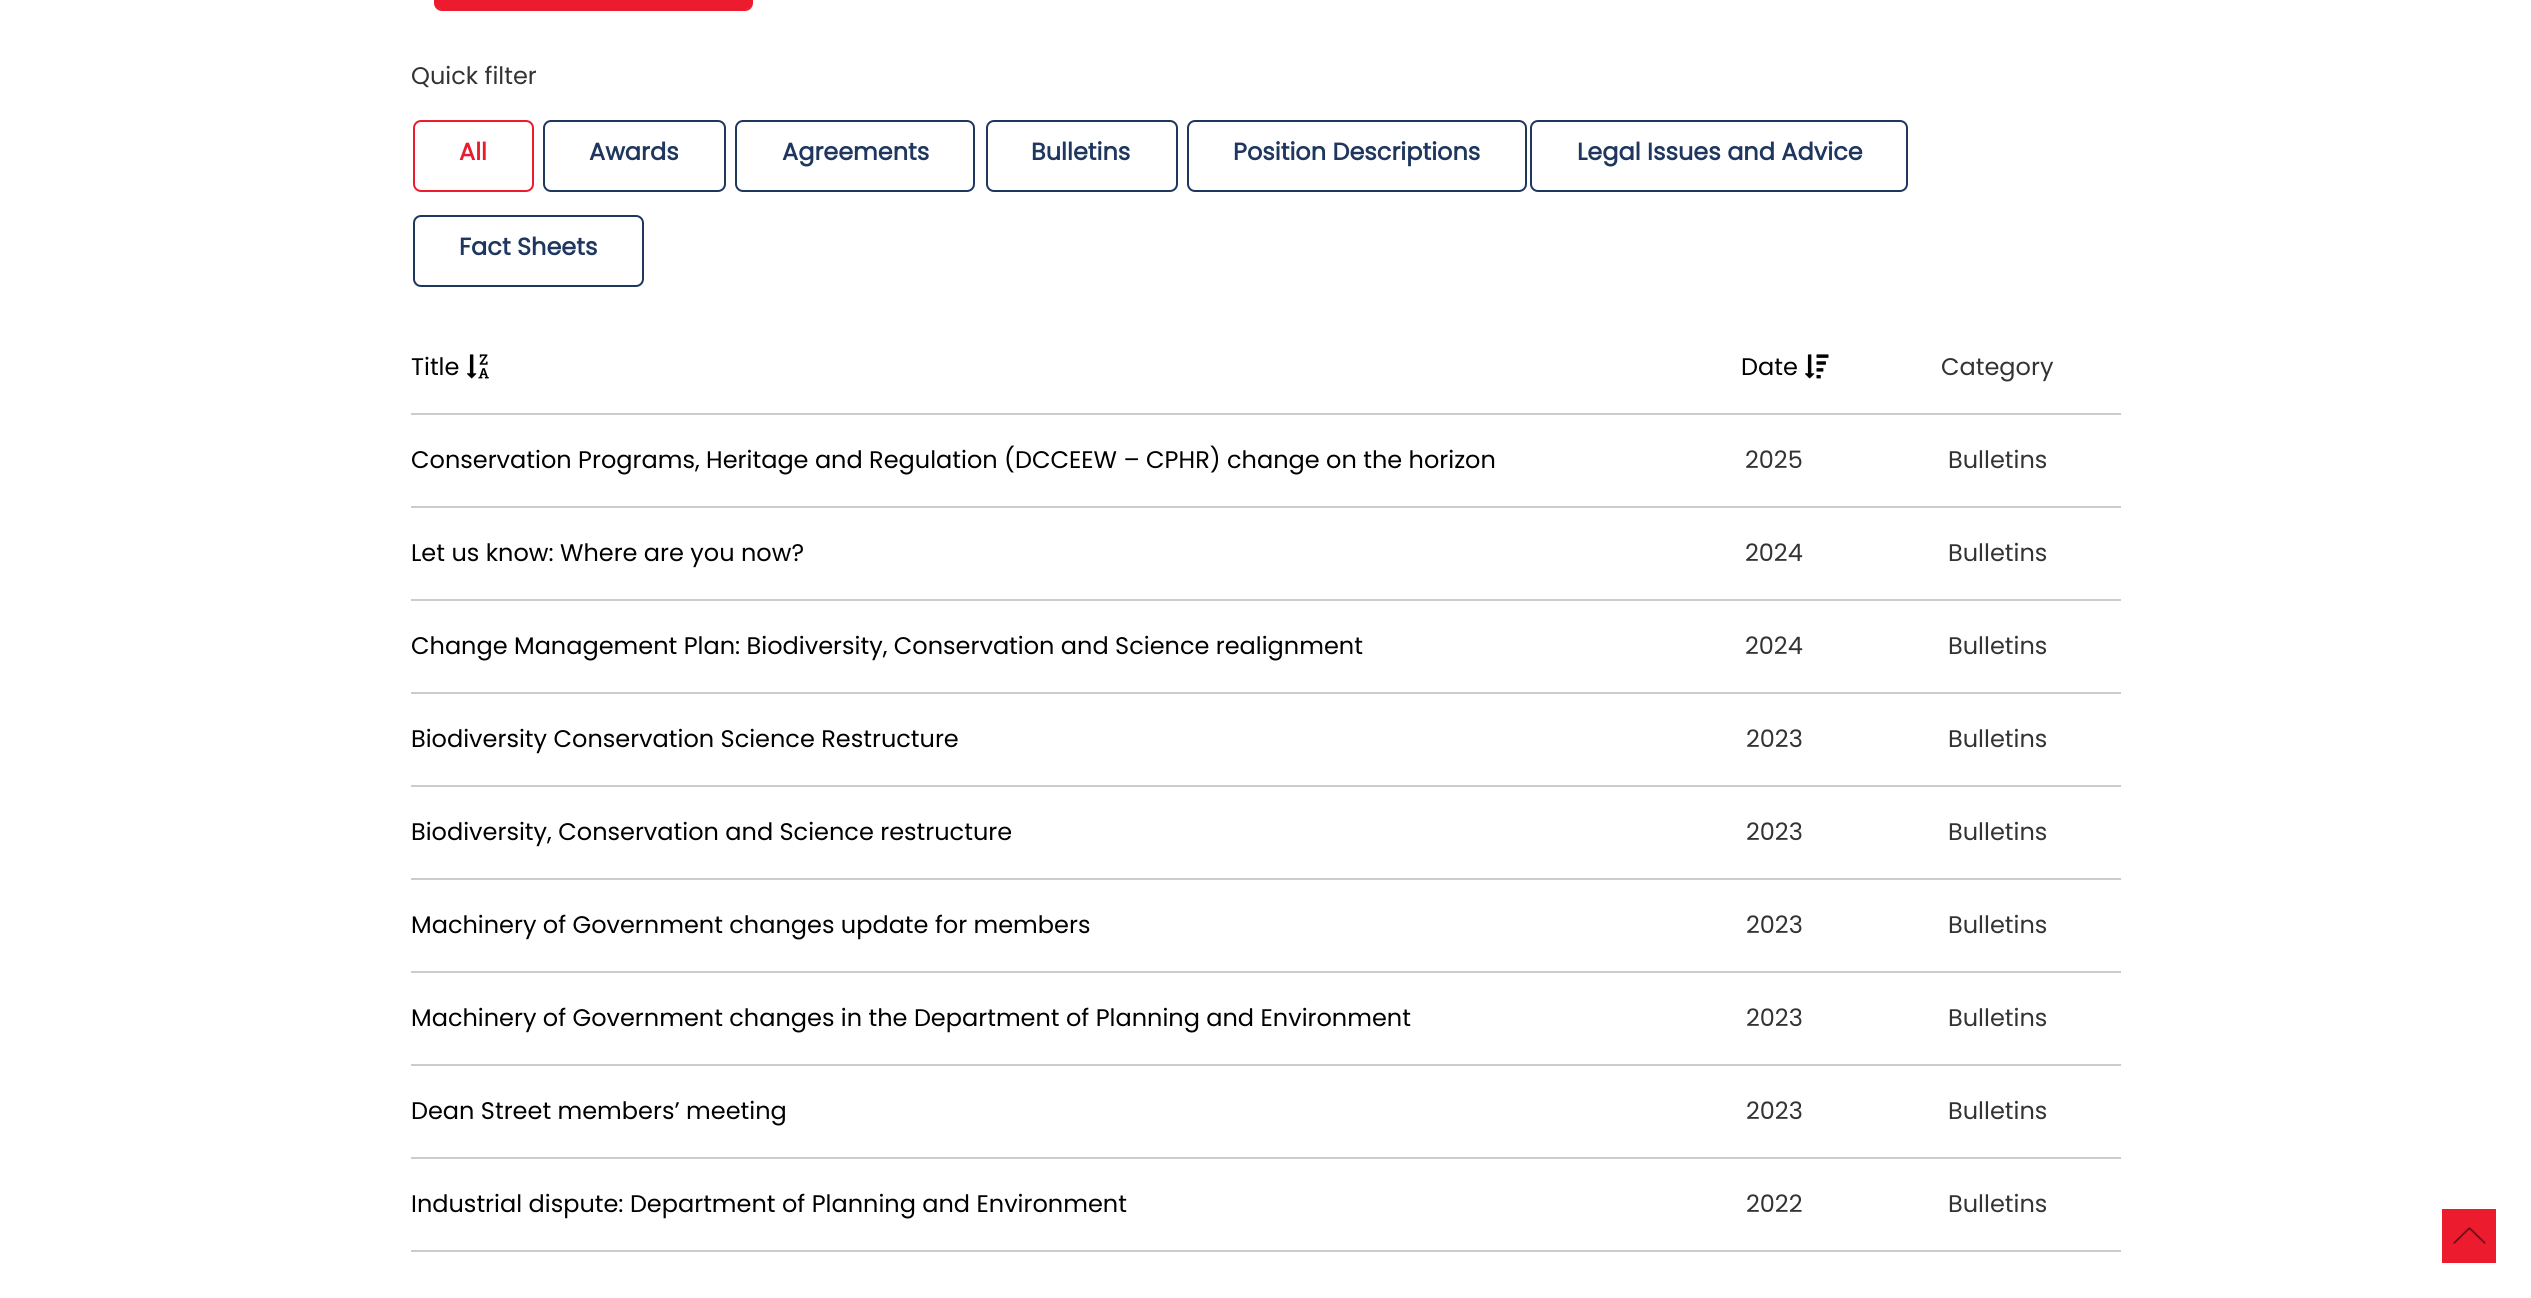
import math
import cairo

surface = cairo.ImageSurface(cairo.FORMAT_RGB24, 2531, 1298)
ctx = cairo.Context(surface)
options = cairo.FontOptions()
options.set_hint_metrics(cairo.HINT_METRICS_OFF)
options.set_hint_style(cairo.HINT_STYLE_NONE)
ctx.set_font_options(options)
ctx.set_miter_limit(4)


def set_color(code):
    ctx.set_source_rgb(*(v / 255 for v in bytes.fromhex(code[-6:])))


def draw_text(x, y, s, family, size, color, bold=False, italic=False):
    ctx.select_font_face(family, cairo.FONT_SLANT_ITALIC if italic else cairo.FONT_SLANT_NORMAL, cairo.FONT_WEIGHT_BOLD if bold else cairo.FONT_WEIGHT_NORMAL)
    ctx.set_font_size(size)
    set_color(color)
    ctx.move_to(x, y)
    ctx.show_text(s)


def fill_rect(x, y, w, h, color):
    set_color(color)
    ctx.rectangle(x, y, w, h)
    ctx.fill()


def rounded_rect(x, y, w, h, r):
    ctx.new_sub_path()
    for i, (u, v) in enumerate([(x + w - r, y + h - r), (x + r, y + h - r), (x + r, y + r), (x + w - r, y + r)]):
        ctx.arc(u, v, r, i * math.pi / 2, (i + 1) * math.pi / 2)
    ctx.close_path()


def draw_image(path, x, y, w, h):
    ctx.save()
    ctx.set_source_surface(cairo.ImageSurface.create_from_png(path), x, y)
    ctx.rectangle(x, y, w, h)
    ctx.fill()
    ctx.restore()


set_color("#ffffff")
ctx.paint()
set_color("#ed1b2e")
rounded_rect(435, -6, 317, 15, 6)
ctx.fill()
rounded_rect(435, -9, 317, 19, 7)
ctx.stroke()
draw_text(411, 84, "Quick filter", "Poppins", 24, "#333333")
rounded_rect(414, 121, 119, 70, 7)
set_color("#ed1b2e")
ctx.stroke()
draw_text(459, 160, "All", "Poppins", 24, "#ed1b2e", bold=True)
rounded_rect(544, 121, 181, 70, 7)
set_color("#1f365f")
ctx.stroke()
draw_text(589, 160, "Awards", "Poppins", 24, "#1f365f", bold=True)
rounded_rect(736, 121, 238, 70, 7)
ctx.stroke()
draw_text(782, 160, "Agreements", "Poppins", 24, "#1f365f", bold=True)
rounded_rect(987, 121, 190, 70, 7)
ctx.stroke()
draw_text(1031, 160, "Bulletins", "Poppins", 24, "#1f365f", bold=True)
rounded_rect(1188, 121, 338, 70, 7)
ctx.stroke()
draw_text(1233, 160, "Position Descriptions", "Poppins", 24, "#1f365f", bold=True)
rounded_rect(1531, 121, 376, 70, 7)
ctx.stroke()
draw_text(1577, 160, "Legal Issues and Advice", "Poppins", 24, "#1f365f", bold=True)
rounded_rect(414, 216, 229, 70, 7)
ctx.stroke()
draw_text(459, 255, "Fact Sheets", "Poppins", 24, "#1f365f", bold=True)
draw_text(411, 375, "Title", "Poppins", 24, "#000000")
draw_image("assets/img1.png", 467, 354, 22, 25)
draw_text(1741, 375, "Date", "Poppins", 24, "#000000")
draw_image("assets/img2.png", 1805, 354, 24, 25)
draw_text(1941, 375, "Category", "Poppins", 24, "#333333")
fill_rect(411, 413, 1710, 2, "#cccccc")
draw_text(411, 468, "Conservation Programs, Heritage and Regulation (DCCEEW – CPHR) change on the horizon", "Poppins", 24, "#000000")
draw_text(1745, 468, "2025", "Poppins", 24, "#333333")
draw_text(1948, 468, "Bulletins", "Poppins", 24, "#333333")
fill_rect(411, 506, 1710, 2, "#cccccc")
draw_text(411, 561, "Let us know: Where are you now?", "Poppins", 24, "#000000")
draw_text(1745, 561, "2024", "Poppins", 24, "#333333")
draw_text(1948, 561, "Bulletins", "Poppins", 24, "#333333")
fill_rect(411, 599, 1710, 2, "#cccccc")
draw_text(411, 654, "Change Management Plan: Biodiversity, Conservation and Science realignment", "Poppins", 24, "#000000")
draw_text(1745, 654, "2024", "Poppins", 24, "#333333")
draw_text(1948, 654, "Bulletins", "Poppins", 24, "#333333")
fill_rect(411, 692, 1710, 2, "#cccccc")
draw_text(411, 747, "Biodiversity Conservation Science Restructure", "Poppins", 24, "#000000")
draw_text(1746, 747, "2023", "Poppins", 24, "#333333")
draw_text(1948, 747, "Bulletins", "Poppins", 24, "#333333")
fill_rect(411, 785, 1710, 2, "#cccccc")
draw_text(411, 840, "Biodiversity, Conservation and Science restructure", "Poppins", 24, "#000000")
draw_text(1746, 840, "2023", "Poppins", 24, "#333333")
draw_text(1948, 840, "Bulletins", "Poppins", 24, "#333333")
fill_rect(411, 878, 1710, 2, "#cccccc")
draw_text(411, 933, "Machinery of Government changes update for members", "Poppins", 24, "#000000")
draw_text(1746, 933, "2023", "Poppins", 24, "#333333")
draw_text(1948, 933, "Bulletins", "Poppins", 24, "#333333")
fill_rect(411, 971, 1710, 2, "#cccccc")
draw_text(411, 1026, "Machinery of Government changes in the Department of Planning and Environment", "Poppins", 24, "#000000")
draw_text(1746, 1026, "2023", "Poppins", 24, "#333333")
draw_text(1948, 1026, "Bulletins", "Poppins", 24, "#333333")
fill_rect(411, 1064, 1710, 2, "#cccccc")
draw_text(411, 1119, "Dean Street members’ meeting", "Poppins", 24, "#000000")
draw_text(1746, 1119, "2023", "Poppins", 24, "#333333")
draw_text(1948, 1119, "Bulletins", "Poppins", 24, "#333333")
fill_rect(411, 1157, 1710, 2, "#cccccc")
draw_text(411, 1212, "Industrial dispute: Department of Planning and Environment", "Poppins", 24, "#000000")
draw_text(1746, 1212, "2022", "Poppins", 24, "#333333")
draw_text(1948, 1212, "Bulletins", "Poppins", 24, "#333333")
fill_rect(411, 1250, 1710, 2, "#cccccc")
fill_rect(2442, 1209, 54, 54, "#ed1b2e")
draw_image("assets/img3.png", 2453, 1227, 33, 17)
surface.write_to_png("output.png")
